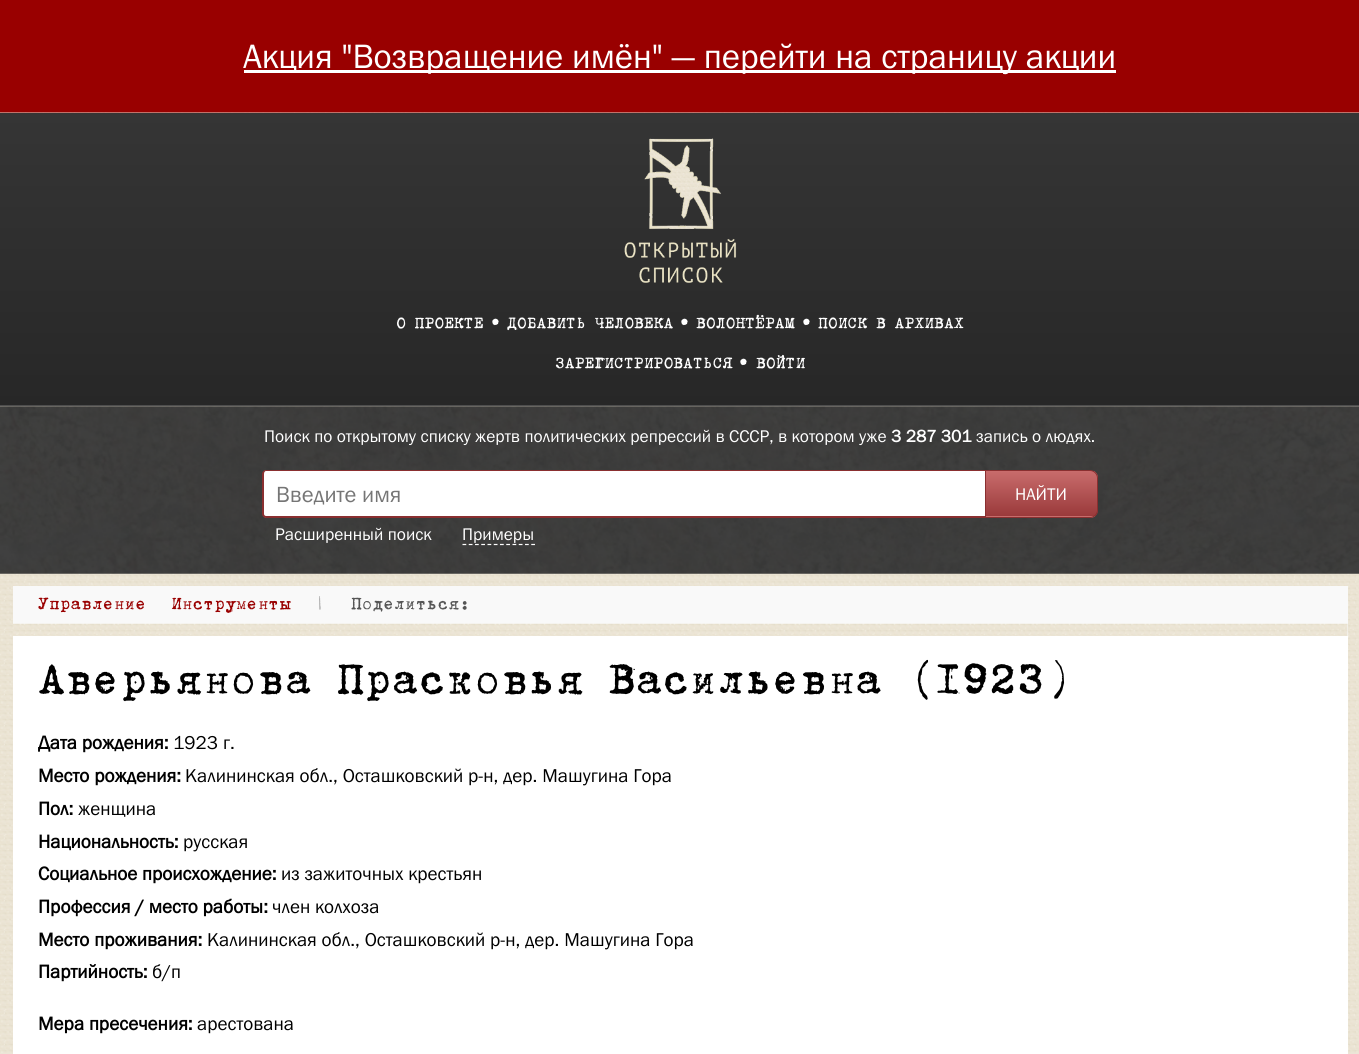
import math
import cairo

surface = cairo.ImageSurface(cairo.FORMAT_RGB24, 1359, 1054)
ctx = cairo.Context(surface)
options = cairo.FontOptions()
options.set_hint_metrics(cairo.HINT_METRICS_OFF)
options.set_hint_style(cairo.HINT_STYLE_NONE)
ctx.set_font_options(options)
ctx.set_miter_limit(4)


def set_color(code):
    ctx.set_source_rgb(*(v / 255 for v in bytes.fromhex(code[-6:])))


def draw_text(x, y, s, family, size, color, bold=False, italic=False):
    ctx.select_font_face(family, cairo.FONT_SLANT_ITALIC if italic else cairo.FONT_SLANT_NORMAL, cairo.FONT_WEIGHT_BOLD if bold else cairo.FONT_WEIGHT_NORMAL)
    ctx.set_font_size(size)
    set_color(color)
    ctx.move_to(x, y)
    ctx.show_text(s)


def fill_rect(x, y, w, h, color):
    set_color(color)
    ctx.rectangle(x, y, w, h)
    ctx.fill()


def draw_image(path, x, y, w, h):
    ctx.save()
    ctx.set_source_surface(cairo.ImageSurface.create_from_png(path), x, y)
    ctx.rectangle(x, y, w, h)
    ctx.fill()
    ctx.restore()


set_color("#990000")
ctx.paint()
fill_rect(244, 70, 872, 3, "#ffffff")
draw_text(243, 68, "Акция \"Возвращение имён\" — перейти на страницу акции", "Franklin Gothic", 35, "#ffffff")
fill_rect(0, 1053, 1359, 1, "#ece5d7")
draw_image("assets/img1.png", 0, 112, 1359, 941)
gradient = cairo.LinearGradient(680, 112, 680, 406)
gradient.add_color_stop_rgba(0, 0.208, 0.208, 0.208, 1)
gradient.add_color_stop_rgba(1, 0.153, 0.153, 0.153, 1)
ctx.set_source(gradient)
ctx.rectangle(0, 113, 1359, 292)
ctx.fill()
fill_rect(0, 405, 1359, 1, "#4e4e4e")
draw_image("assets/img2.png", 624, 138, 113, 145)
draw_text(396, 328, "О ПРОЕКТЕ", "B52", 17.5, "#ffffff")
draw_text(488, 328, "•", "B52", 28, "#ffffff")
draw_text(507, 328, "ДОБАВИТЬ ЧЕЛОВЕКА", "B52", 17.5, "#ffffff")
draw_text(677, 328, "•", "B52", 28, "#ffffff")
draw_text(696, 328, "ВОЛОНТЁРАМ", "B52", 17.5, "#ffffff")
draw_text(799, 328, "•", "B52", 28, "#ffffff")
draw_text(818, 328, "ПОИСК В АРХИВАХ", "B52", 17.5, "#ffffff")
draw_text(555, 368, "ЗАРЕГИСТРИРОВАТЬСЯ", "B52", 17.5, "#ffffff")
draw_text(736, 368, "•", "B52", 28, "#ffffff")
draw_text(756, 368, "ВОЙТИ", "B52", 17.5, "#ffffff")
draw_image("assets/img3.png", 0, 406, 1359, 168)
draw_text(264, 442, "Поиск по открытому списку жертв политических репрессий в СССР, в котором уже", "Franklin Gothic", 17.5, "#ffffff")
draw_text(891, 442, "3 287 301", "Franklin Gothic", 17.5, "#ffffff", bold=True)
draw_text(976, 442, "запись о людях.", "Franklin Gothic", 17.5, "#ffffff")
ctx.new_path()
ctx.move_to(267, 470)
ctx.line_to(985, 470)
ctx.line_to(985, 518)
ctx.line_to(267, 518)
ctx.curve_to(265, 518, 263, 516, 263, 514)
ctx.line_to(263, 474)
ctx.curve_to(263, 472, 265, 470, 267, 470)
ctx.close_path()
ctx.fill()
set_color("#8a2f30")
ctx.set_fill_rule(cairo.FILL_RULE_EVEN_ODD)
ctx.new_path()
ctx.move_to(266, 470)
ctx.line_to(985, 470)
ctx.line_to(985, 518)
ctx.line_to(266, 518)
ctx.curve_to(264, 518, 262, 516, 262, 514)
ctx.line_to(262, 474)
ctx.curve_to(262, 472, 264, 470, 266, 470)
ctx.close_path()
ctx.move_to(266, 471)
ctx.line_to(985, 471)
ctx.line_to(985, 516)
ctx.line_to(266, 516)
ctx.curve_to(265, 516, 264, 515, 264, 514)
ctx.line_to(264, 474)
ctx.curve_to(264, 472, 265, 471, 266, 471)
ctx.close_path()
ctx.fill()
draw_text(276, 502, "Введите имя", "Franklin Gothic", 22.75, "#757575")
ctx.save()
ctx.set_fill_rule(cairo.FILL_RULE_WINDING)
ctx.new_path()
ctx.move_to(985, 470)
ctx.line_to(1090, 470)
ctx.curve_to(1094.5, 470, 1098, 473.5, 1098, 478)
ctx.line_to(1098, 510)
ctx.curve_to(1098, 514.5, 1094.5, 518, 1090, 518)
ctx.line_to(985, 518)
ctx.close_path()
ctx.clip()
gradient = cairo.LinearGradient(1041, 471, 1041, 516)
gradient.add_color_stop_rgba(0, 0.788, 0.424, 0.424, 1)
gradient.add_color_stop_rgba(1, 0.604, 0.227, 0.231, 1)
ctx.set_source(gradient)
ctx.rectangle(986, 471, 112, 45)
ctx.fill()
gradient = cairo.LinearGradient(1041, 516, 1041, 561)
gradient.add_color_stop_rgba(0, 0.788, 0.424, 0.424, 1)
gradient.add_color_stop_rgba(1, 0.604, 0.227, 0.231, 1)
ctx.set_source(gradient)
ctx.rectangle(985, 516, 113, 2)
ctx.fill()
ctx.restore()
ctx.new_path()
ctx.move_to(985.5, 470.5)
ctx.line_to(1090, 470.5)
ctx.curve_to(1094, 470.5, 1097.5, 474, 1097.5, 478)
ctx.line_to(1097.5, 510)
ctx.curve_to(1097.5, 514, 1094, 517.5, 1090, 517.5)
ctx.line_to(985.5, 517.5)
ctx.close_path()
set_color("#8a2f30")
ctx.set_line_width(1)
ctx.stroke()
draw_text(1015, 500, "НАЙТИ", "Franklin Gothic", 17.5, "#ffffff")
draw_text(275, 540, "Расширенный поиск", "Franklin Gothic", 17.5, "#ffffff")
draw_text(462, 540, "Примеры", "Franklin Gothic", 17.5, "#ffffff")
ctx.new_path()
ctx.move_to(462.5, 544.5)
ctx.line_to(535, 544.5)
ctx.set_line_width(1.2)
ctx.set_dash([3.75, 2.5])
ctx.stroke()
fill_rect(13, 586, 1335, 50, "#f9f9f9")
draw_text(38, 609, "Управление", "B52", 19.25, "#990000")
draw_text(171, 609, "Инструменты", "B52", 19.25, "#990000")
draw_text(315, 609, "|", "B52", 19.25, "#999999")
draw_text(351, 609, "Поделиться:", "B52", 19.25, "#555555")
draw_image("assets/img4.png", 13, 623, 1335, 13)
fill_rect(13, 636, 1335, 418, "#ffffff")
draw_text(38, 693, "Аверьянова Прасковья Васильевна (1923)", "B52", 48.75, "#000000")
draw_text(38, 749, "Дата рождения:", "Franklin Gothic", 19.25, "#000000", bold=True)
draw_text(173, 749, "1923 г.", "Franklin Gothic", 19.25, "#000000")
draw_text(38, 782, "Место рождения:", "Franklin Gothic", 19.25, "#000000", bold=True)
draw_text(185, 782, "Калининская обл., Осташковский р-н, дер. Машугина Гора", "Franklin Gothic", 19.25, "#000000")
draw_text(38, 815, "Пол:", "Franklin Gothic", 19.25, "#000000", bold=True)
draw_text(78, 815, "женщина", "Franklin Gothic", 19.25, "#000000")
draw_text(38, 848, "Национальность:", "Franklin Gothic", 19.25, "#000000", bold=True)
draw_text(183, 848, "русская", "Franklin Gothic", 19.25, "#000000")
draw_text(38, 880, "Социальное происхождение:", "Franklin Gothic", 19.25, "#000000", bold=True)
draw_text(281, 880, "из зажиточных крестьян", "Franklin Gothic", 19.25, "#000000")
draw_text(38, 913, "Профессия / место работы:", "Franklin Gothic", 19.25, "#000000", bold=True)
draw_text(272, 913, "член колхоза", "Franklin Gothic", 19.25, "#000000")
draw_text(38, 946, "Место проживания:", "Franklin Gothic", 19.25, "#000000", bold=True)
draw_text(207, 946, "Калининская обл., Осташковский р-н, дер. Машугина Гора", "Franklin Gothic", 19.25, "#000000")
draw_text(38, 978, "Партийность:", "Franklin Gothic", 19.25, "#000000", bold=True)
draw_text(152, 978, "б/п", "Franklin Gothic", 19.25, "#000000")
draw_text(38, 1030, "Мера пресечения:", "Franklin Gothic", 19.25, "#000000", bold=True)
draw_text(197, 1030, "арестована", "Franklin Gothic", 19.25, "#000000")
surface.write_to_png("output.png")
